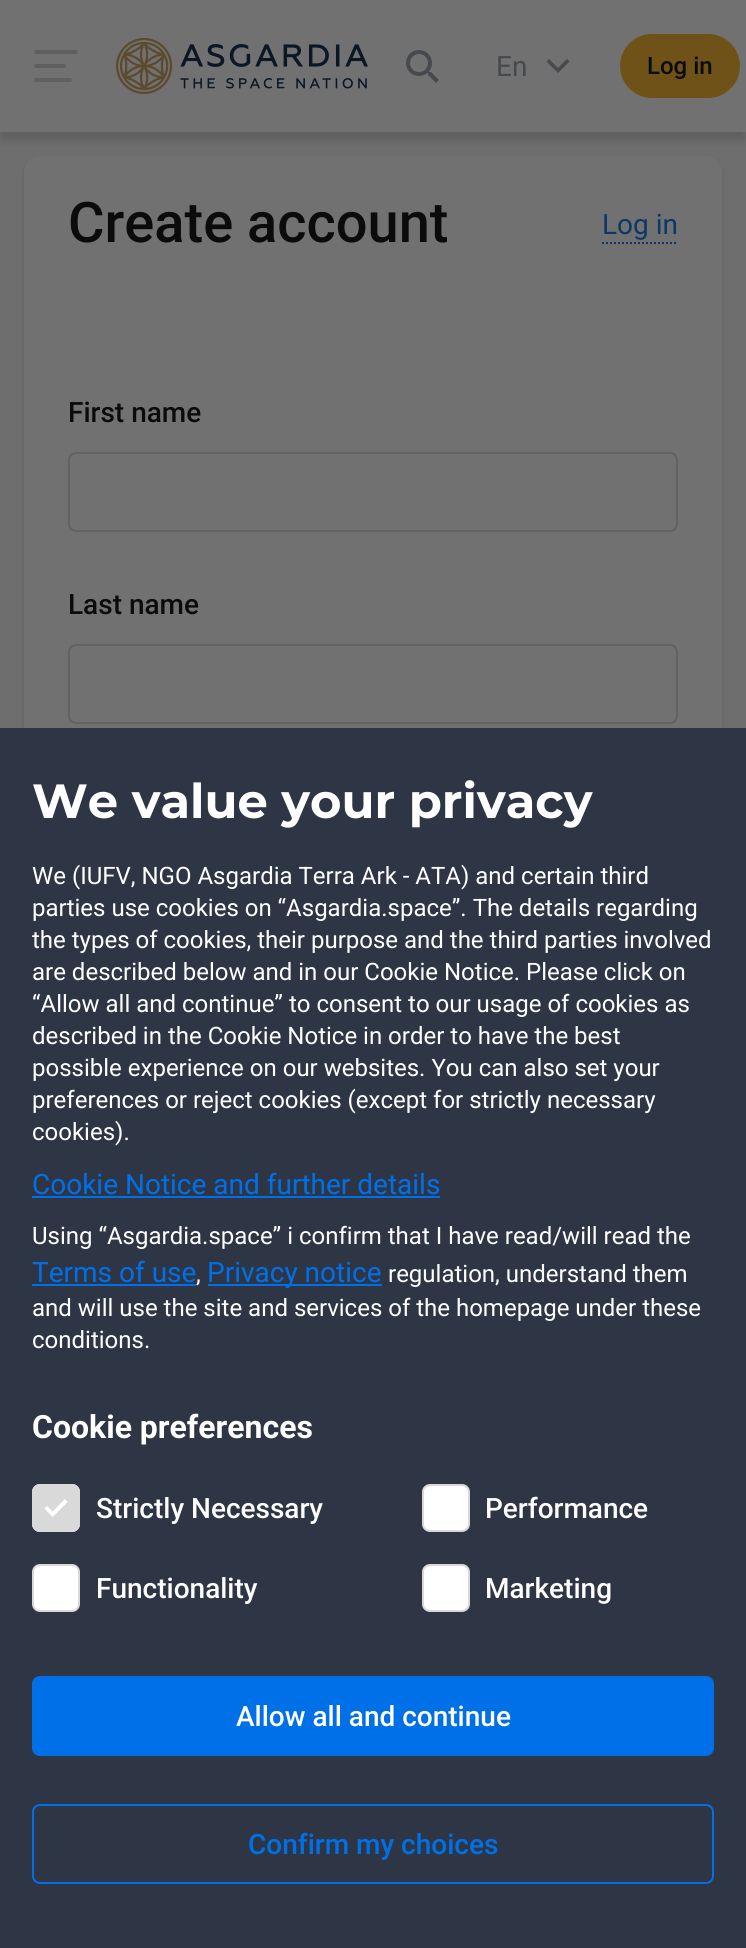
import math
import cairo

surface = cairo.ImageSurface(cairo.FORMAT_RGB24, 746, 1948)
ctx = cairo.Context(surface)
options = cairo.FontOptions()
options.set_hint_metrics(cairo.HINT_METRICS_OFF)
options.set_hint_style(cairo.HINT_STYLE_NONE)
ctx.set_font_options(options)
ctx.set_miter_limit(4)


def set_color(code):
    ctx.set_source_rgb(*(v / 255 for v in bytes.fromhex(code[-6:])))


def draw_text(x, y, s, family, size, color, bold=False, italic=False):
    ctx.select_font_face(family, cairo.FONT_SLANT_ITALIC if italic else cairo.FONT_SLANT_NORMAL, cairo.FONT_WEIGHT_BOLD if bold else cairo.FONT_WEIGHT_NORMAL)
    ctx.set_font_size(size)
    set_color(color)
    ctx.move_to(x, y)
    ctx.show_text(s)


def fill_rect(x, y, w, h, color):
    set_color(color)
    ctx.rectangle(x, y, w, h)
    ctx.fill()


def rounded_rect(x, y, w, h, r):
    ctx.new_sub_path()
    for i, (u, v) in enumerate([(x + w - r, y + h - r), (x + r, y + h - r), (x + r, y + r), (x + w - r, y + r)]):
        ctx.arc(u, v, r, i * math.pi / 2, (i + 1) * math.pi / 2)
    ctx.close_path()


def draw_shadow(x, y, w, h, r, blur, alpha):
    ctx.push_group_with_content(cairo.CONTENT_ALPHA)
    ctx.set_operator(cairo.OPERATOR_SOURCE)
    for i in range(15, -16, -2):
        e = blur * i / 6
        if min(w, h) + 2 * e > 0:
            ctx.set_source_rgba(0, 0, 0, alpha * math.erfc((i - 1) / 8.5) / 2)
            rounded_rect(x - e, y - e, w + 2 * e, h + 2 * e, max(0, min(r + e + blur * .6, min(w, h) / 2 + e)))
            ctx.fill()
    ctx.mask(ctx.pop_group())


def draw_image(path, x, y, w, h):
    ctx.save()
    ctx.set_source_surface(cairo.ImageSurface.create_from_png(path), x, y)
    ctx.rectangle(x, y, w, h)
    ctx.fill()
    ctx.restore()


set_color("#6e6e6e")
ctx.paint()
set_color("#0b0b0b")
draw_shadow(0, 8, 746, 132, 0, 4, 0.15)
fill_rect(0, 0, 746, 132, "#717171")
draw_image("assets/img1.png", 34, 50, 44, 32)
draw_image("assets/img2.png", 116, 37, 252, 58)
draw_image("assets/img3.png", 406, 50, 33, 33)
draw_text(496, 76, "En", "Roboto", 28, "#46494d")
ctx.new_path()
ctx.move_to(546.5, 61.5)
ctx.line_to(549, 59)
ctx.line_to(558, 68)
ctx.line_to(567, 59)
ctx.line_to(569.5, 61.5)
ctx.line_to(558, 73)
ctx.close_path()
ctx.fill()
set_color("#6e5218")
rounded_rect(620, 34, 120, 64, 32)
ctx.fill()
draw_text(647, 74, "Log in", "Roboto Medium", 24, "#0b0b0b")
set_color("#0b0b0b")
draw_shadow(24, 158, 698, 1364, 16, 2, 0.15)
set_color("#717171")
rounded_rect(24, 156, 698, 1364, 16)
ctx.fill()
draw_text(68, 242, "Create account", "Roboto Medium", 56, "#0b0b0b")
ctx.new_path()
ctx.move_to(602, 243)
ctx.line_to(678, 243)
set_color("#0b3868")
ctx.set_dash([2, 2])
ctx.stroke()
draw_text(602, 234, "Log in", "Roboto", 28, "#0b3868")
draw_text(68, 422, "First name", "Roboto Medium", 28, "#0b0b0b")
rounded_rect(69, 453, 608, 78, 7)
set_color("#606264")
ctx.set_dash([])
ctx.stroke()
draw_text(68, 614, "Last name", "Roboto Medium", 28, "#0b0b0b")
rounded_rect(69, 645, 608, 78, 7)
set_color("#606264")
ctx.stroke()
fill_rect(0, 728, 746, 1220, "#2e3645")
draw_text(32, 818, "We value your privacy", "Montserrat", 48, "#ffffff", bold=True)
draw_text(32, 884, "We (IUFV, NGO Asgardia Terra Ark - ATA) and certain third", "Roboto", 24, "#ffffff")
draw_text(32, 916, "parties use cookies on “Asgardia.space”. The details regarding", "Roboto", 24, "#ffffff")
draw_text(32, 948, "the types of cookies, their purpose and the third parties involved", "Roboto", 24, "#ffffff")
draw_text(32, 980, "are described below and in our Cookie Notice. Please click on", "Roboto", 24, "#ffffff")
draw_text(32, 1012, "“Allow all and continue” to consent to our usage of cookies as", "Roboto", 24, "#ffffff")
draw_text(32, 1044, "described in the Cookie Notice in order to have the best", "Roboto", 24, "#ffffff")
draw_text(32, 1076, "possible experience on our websites. You can also set your", "Roboto", 24, "#ffffff")
draw_text(32, 1108, "preferences or reject cookies (except for strictly necessary", "Roboto", 24, "#ffffff")
draw_text(32, 1140, "cookies).", "Roboto", 24, "#ffffff")
draw_text(32, 1194, "Cookie Notice and further details", "Roboto", 28, "#0070e9")
fill_rect(32, 1196, 408, 2, "#0070e9")
draw_text(32, 1244, "Using “Asgardia.space” i confirm that I have read/will read the", "Roboto", 24, "#ffffff")
draw_text(32, 1282, "Terms of use", "Roboto", 28, "#0070e9")
fill_rect(32, 1284, 164, 2, "#0070e9")
draw_text(196, 1282, ",", "Roboto", 24, "#ffffff")
fill_rect(208, 1284, 174, 2, "#0070e9")
draw_text(207, 1282, "Privacy notice", "Roboto", 28, "#0070e9")
draw_text(388, 1282, "regulation, understand them", "Roboto", 24, "#ffffff")
draw_text(32, 1316, "and will use the site and services of the homepage under these", "Roboto", 24, "#ffffff")
draw_text(32, 1348, "conditions.", "Roboto", 24, "#ffffff")
draw_text(32, 1438, "Cookie preferences", "Roboto", 32, "#ffffff", bold=True)
set_color("#d9d9d9")
rounded_rect(32, 1484, 48, 48, 8)
ctx.fill()
set_color("#ffffff")
ctx.new_path()
ctx.move_to(67.5, 1502)
ctx.line_to(52.5, 1517)
ctx.line_to(44.5, 1508.5)
ctx.line_to(47, 1506)
ctx.line_to(52.5, 1511.5)
ctx.line_to(65, 1499)
ctx.close_path()
ctx.fill()
rounded_rect(33, 1485, 46, 46, 7)
set_color("#d9d9d9")
ctx.stroke()
draw_text(96, 1518, "Strictly Necessary", "Roboto Medium", 28, "#ffffff")
rounded_rect(423, 1485, 46, 46, 7)
ctx.fill_preserve()
set_color("#d9d9d9")
ctx.stroke()
draw_text(485, 1518, "Performance", "Roboto Medium", 28, "#ffffff")
rounded_rect(33, 1565, 46, 46, 7)
ctx.fill_preserve()
set_color("#d9d9d9")
ctx.stroke()
draw_text(96, 1598, "Functionality", "Roboto Medium", 28, "#ffffff")
rounded_rect(423, 1565, 46, 46, 7)
ctx.fill_preserve()
set_color("#d9d9d9")
ctx.stroke()
draw_text(485, 1598, "Marketing", "Roboto Medium", 28, "#ffffff")
set_color("#0070e9")
rounded_rect(32, 1676, 682, 80, 8)
ctx.fill()
draw_text(236, 1726, "Allow all and continue", "Roboto Medium", 28, "#ffffff")
rounded_rect(33, 1805, 680, 78, 7)
set_color("#0070e9")
ctx.stroke()
draw_text(248, 1854, "Confirm my choices", "Roboto Medium", 28, "#0070e9")
surface.write_to_png("output.png")
